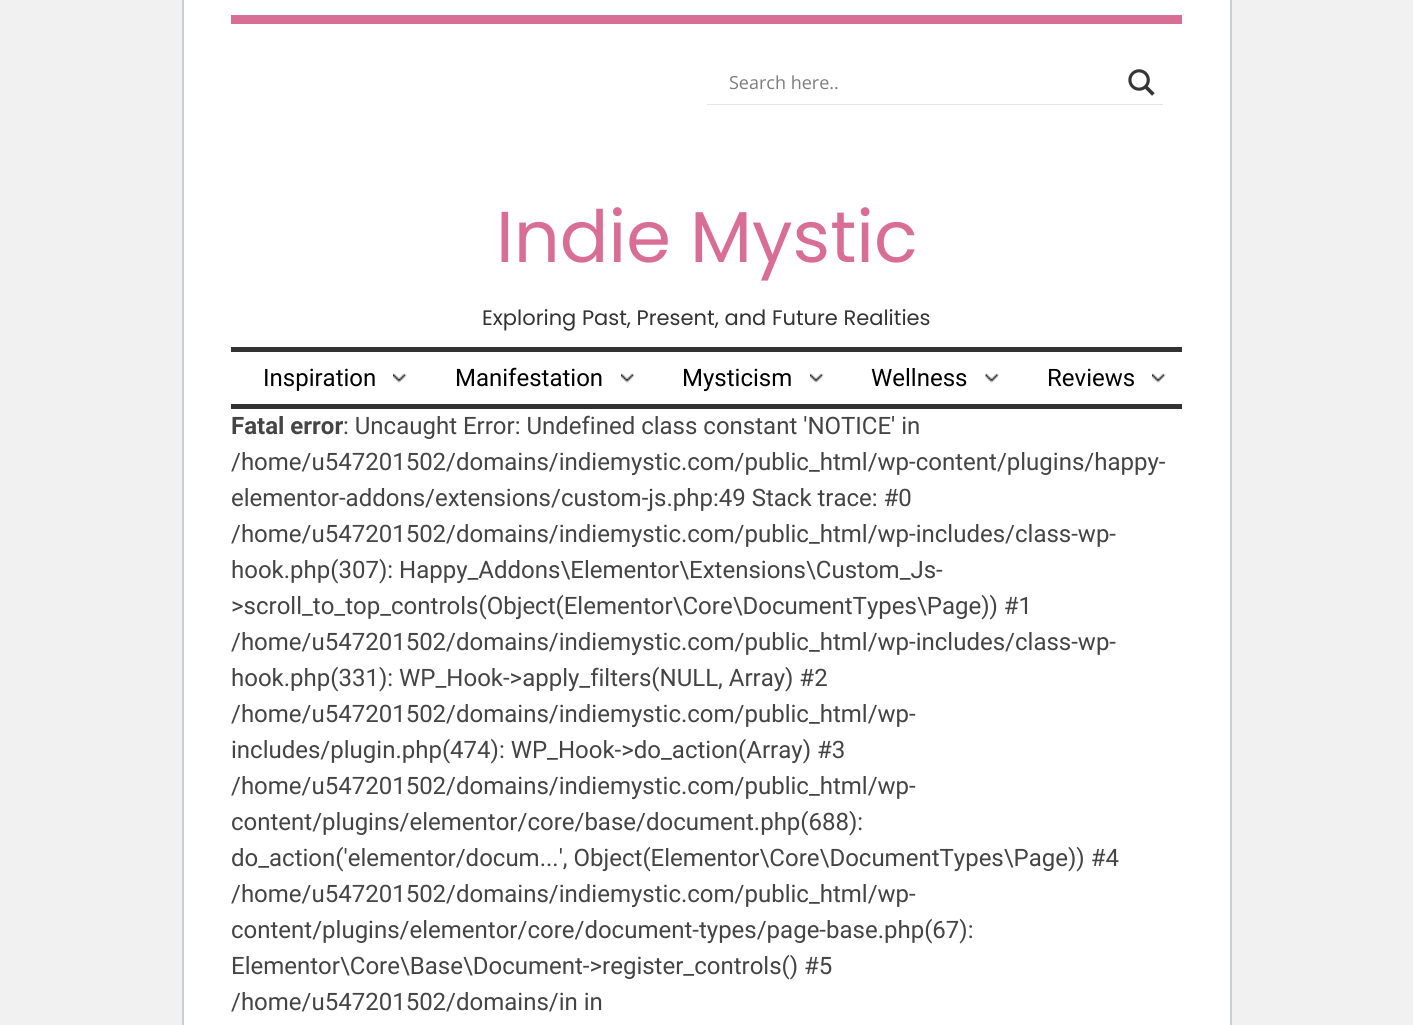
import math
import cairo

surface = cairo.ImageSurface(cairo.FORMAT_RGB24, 1413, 1025)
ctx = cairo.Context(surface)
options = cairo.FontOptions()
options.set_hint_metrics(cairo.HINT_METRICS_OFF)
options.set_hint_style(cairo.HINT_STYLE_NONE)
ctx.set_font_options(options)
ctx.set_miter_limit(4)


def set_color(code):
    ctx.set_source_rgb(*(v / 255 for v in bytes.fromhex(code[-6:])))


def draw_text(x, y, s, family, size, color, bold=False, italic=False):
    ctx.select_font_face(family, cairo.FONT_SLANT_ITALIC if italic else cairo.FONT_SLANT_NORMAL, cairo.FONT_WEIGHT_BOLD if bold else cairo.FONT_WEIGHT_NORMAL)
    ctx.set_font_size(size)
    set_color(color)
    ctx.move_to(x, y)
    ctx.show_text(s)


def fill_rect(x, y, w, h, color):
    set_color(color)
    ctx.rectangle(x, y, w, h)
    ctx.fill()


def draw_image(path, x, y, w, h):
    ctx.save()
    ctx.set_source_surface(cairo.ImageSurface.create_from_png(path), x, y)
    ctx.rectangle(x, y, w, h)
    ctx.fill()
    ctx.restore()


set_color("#f1f1f1")
ctx.paint()
set_color("#ffffff")
ctx.rectangle(183, -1, 1048, 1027)
ctx.fill_preserve()
set_color("#ccd0d4")
ctx.stroke()
fill_rect(231, 15, 951, 9, "#d96e94")
set_color("#e4e4e4")
ctx.new_path()
ctx.move_to(707, 104)
ctx.line_to(707, 105)
ctx.line_to(1163, 105)
ctx.line_to(1163, 63)
ctx.line_to(1162, 63)
ctx.line_to(1162, 104)
ctx.close_path()
ctx.fill()
fill_rect(1162, 63, 1, 41, "#ffffff")
draw_text(729, 89, "Search here..", "Open Sans", 18, "#7d7d7d")
draw_image("assets/img1.png", 1128, 69, 27, 27)
draw_text(496, 262, "Indie Mystic", "Poppins", 72, "#d96e94")
draw_text(482, 325, "Exploring Past, Present, and Future Realities", "Poppins", 21, "#333333")
fill_rect(231, 347, 951, 5, "#333333")
fill_rect(231, 404, 951, 5, "#333333")
draw_image("assets/img2.png", 393, 373, 14, 10)
draw_text(263, 386, "Inspiration", "Roboto", 24, "#000000")
draw_image("assets/img3.png", 621, 373, 14, 10)
draw_text(455, 386, "Manifestation", "Roboto", 24, "#000000")
draw_image("assets/img3.png", 810, 373, 14, 10)
draw_text(682, 386, "Mysticism", "Roboto", 24, "#000000")
draw_image("assets/img4.png", 985, 373, 14, 10)
draw_text(871, 386, "Wellness", "Roboto", 24, "#000000")
draw_image("assets/img2.png", 1152, 373, 14, 10)
draw_text(1047, 386, "Reviews", "Roboto", 24, "#000000")
draw_text(231, 434, "Fatal error", "Roboto", 24, "#444444", bold=True)
draw_text(343, 434, ": Uncaught Error: Undefined class constant 'NOTICE' in", "Roboto", 24, "#444444")
draw_text(231, 470, "/home/u547201502/domains/indiemystic.com/public_html/wp-content/plugins/happy-", "Roboto", 24, "#444444")
draw_text(231, 506, "elementor-addons/extensions/custom-js.php:49 Stack trace: #0", "Roboto", 24, "#444444")
draw_text(231, 542, "/home/u547201502/domains/indiemystic.com/public_html/wp-includes/class-wp-", "Roboto", 24, "#444444")
draw_text(231, 578, "hook.php(307): Happy_Addons\\Elementor\\Extensions\\Custom_Js-", "Roboto", 24, "#444444")
draw_text(231, 614, ">scroll_to_top_controls(Object(Elementor\\Core\\DocumentTypes\\Page)) #1", "Roboto", 24, "#444444")
draw_text(231, 650, "/home/u547201502/domains/indiemystic.com/public_html/wp-includes/class-wp-", "Roboto", 24, "#444444")
draw_text(231, 686, "hook.php(331): WP_Hook->apply_filters(NULL, Array) #2", "Roboto", 24, "#444444")
draw_text(231, 722, "/home/u547201502/domains/indiemystic.com/public_html/wp-", "Roboto", 24, "#444444")
draw_text(231, 758, "includes/plugin.php(474): WP_Hook->do_action(Array) #3", "Roboto", 24, "#444444")
draw_text(231, 794, "/home/u547201502/domains/indiemystic.com/public_html/wp-", "Roboto", 24, "#444444")
draw_text(231, 830, "content/plugins/elementor/core/base/document.php(688):", "Roboto", 24, "#444444")
draw_text(231, 866, "do_action('elementor/docum...', Object(Elementor\\Core\\DocumentTypes\\Page)) #4", "Roboto", 24, "#444444")
draw_text(231, 902, "/home/u547201502/domains/indiemystic.com/public_html/wp-", "Roboto", 24, "#444444")
draw_text(231, 938, "content/plugins/elementor/core/document-types/page-base.php(67):", "Roboto", 24, "#444444")
draw_text(231, 974, "Elementor\\Core\\Base\\Document->register_controls() #5", "Roboto", 24, "#444444")
draw_text(231, 1010, "/home/u547201502/domains/in in", "Roboto", 24, "#444444")
surface.write_to_png("output.png")
